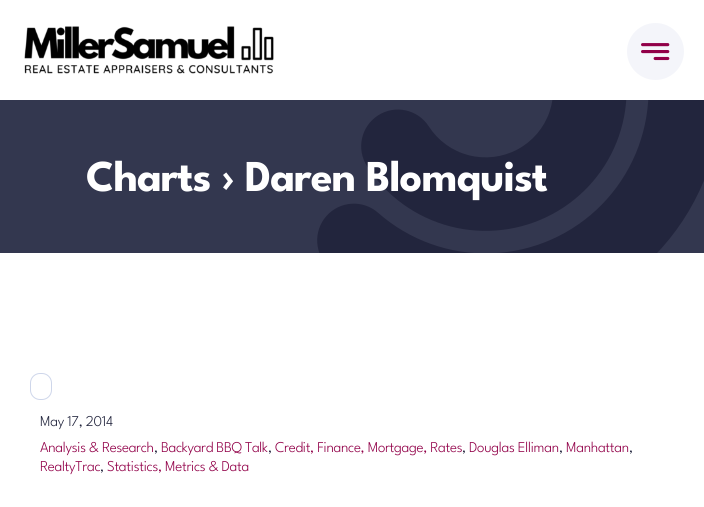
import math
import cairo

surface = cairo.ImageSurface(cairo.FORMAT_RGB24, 704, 507)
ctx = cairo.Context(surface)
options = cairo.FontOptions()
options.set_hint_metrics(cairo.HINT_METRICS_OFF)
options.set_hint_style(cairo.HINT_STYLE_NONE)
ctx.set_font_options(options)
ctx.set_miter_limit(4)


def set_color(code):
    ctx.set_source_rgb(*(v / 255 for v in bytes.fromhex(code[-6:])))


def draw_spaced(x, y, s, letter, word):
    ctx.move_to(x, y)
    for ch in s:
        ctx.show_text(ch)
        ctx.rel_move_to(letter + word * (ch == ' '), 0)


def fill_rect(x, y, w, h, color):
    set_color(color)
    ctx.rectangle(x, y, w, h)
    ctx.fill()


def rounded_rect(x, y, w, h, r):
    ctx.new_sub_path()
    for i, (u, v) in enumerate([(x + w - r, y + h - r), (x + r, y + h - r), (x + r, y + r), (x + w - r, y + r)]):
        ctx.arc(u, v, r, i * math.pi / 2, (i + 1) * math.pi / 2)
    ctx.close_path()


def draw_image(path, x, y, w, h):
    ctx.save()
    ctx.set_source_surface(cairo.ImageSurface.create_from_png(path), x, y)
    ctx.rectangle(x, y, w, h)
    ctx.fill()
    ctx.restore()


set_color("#ffffff")
ctx.paint()
draw_image("assets/img1.png", 24, 26, 250, 48)
set_color("#f4f5fa")
ctx.arc(655.5, 51.5, 28.5, 0, 2 * math.pi)
ctx.fill()
draw_image("assets/img2.png", 641, 43, 29, 18)
fill_rect(0, 100, 704, 153, "#22253d")
draw_image("assets/img3.png", 0, 100, 704, 153)
ctx.select_font_face("League Spartan", cairo.FONT_SLANT_NORMAL, cairo.FONT_WEIGHT_BOLD)
ctx.set_font_size(44)
set_color("#ffffff")
draw_spaced(86, 191, "Charts › Daren Blomquist", -0.9, 0)
rounded_rect(30.5, 373.5, 21, 26, 9.5)
set_color("#ced6ea")
ctx.set_line_width(1)
ctx.stroke()
ctx.select_font_face("League Spartan Light")
ctx.set_font_size(15)
set_color("#22253d")
draw_spaced(40, 426, "May 17, 2014", -0.3, 0)
set_color("#910048")
draw_spaced(40, 452, "Analysis & Research", -0.3, 0)
set_color("#22253d")
draw_spaced(154, 452, ",", -0.3, 0)
set_color("#910048")
draw_spaced(161, 452, "Backyard BBQ Talk", -0.3, 0)
set_color("#22253d")
draw_spaced(268, 452, ",", -0.3, 0)
set_color("#910048")
draw_spaced(275, 452, "Credit, Finance, Mortgage, Rates", -0.3, 0)
set_color("#22253d")
draw_spaced(462, 452, ",", -0.3, 0)
set_color("#910048")
draw_spaced(469, 452, "Douglas Elliman", -0.3, 0)
set_color("#22253d")
draw_spaced(559, 452, ",", -0.3, 0)
set_color("#910048")
draw_spaced(566, 452, "Manhattan", -0.3, 0)
set_color("#22253d")
draw_spaced(629, 452, ",", -0.3, 0)
set_color("#910048")
draw_spaced(40, 471, "RealtyTrac", -0.3, 0)
set_color("#22253d")
draw_spaced(100, 471, ",", -0.3, 0)
set_color("#910048")
draw_spaced(107, 471, "Statistics, Metrics & Data", -0.3, 0)
surface.write_to_png("output.png")
